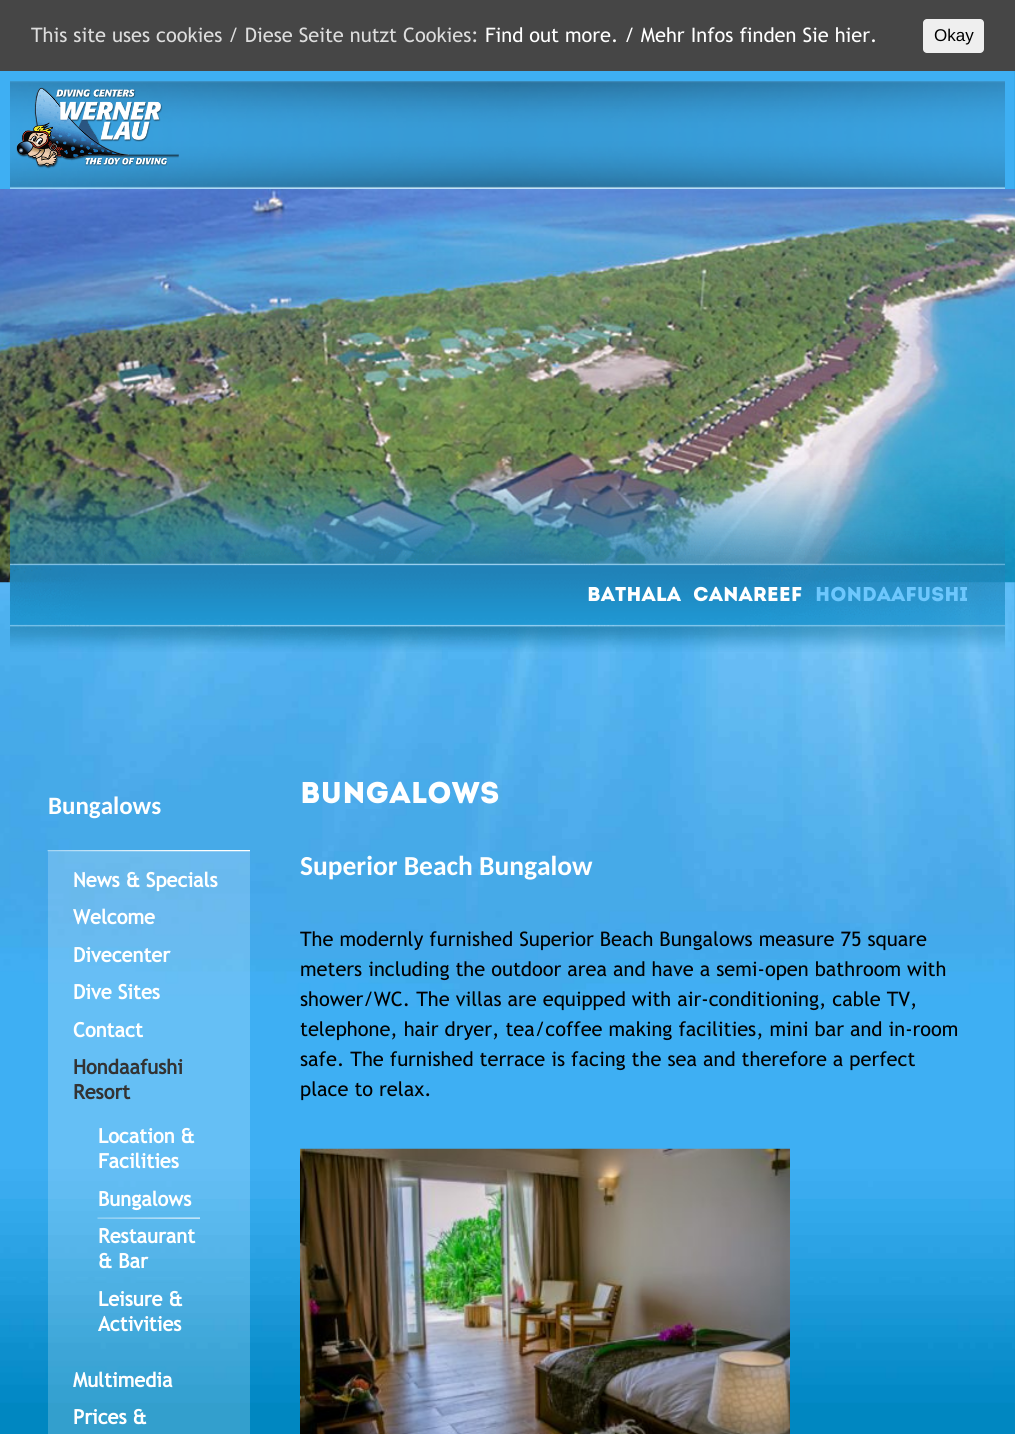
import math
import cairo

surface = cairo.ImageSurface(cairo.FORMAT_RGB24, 1015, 1434)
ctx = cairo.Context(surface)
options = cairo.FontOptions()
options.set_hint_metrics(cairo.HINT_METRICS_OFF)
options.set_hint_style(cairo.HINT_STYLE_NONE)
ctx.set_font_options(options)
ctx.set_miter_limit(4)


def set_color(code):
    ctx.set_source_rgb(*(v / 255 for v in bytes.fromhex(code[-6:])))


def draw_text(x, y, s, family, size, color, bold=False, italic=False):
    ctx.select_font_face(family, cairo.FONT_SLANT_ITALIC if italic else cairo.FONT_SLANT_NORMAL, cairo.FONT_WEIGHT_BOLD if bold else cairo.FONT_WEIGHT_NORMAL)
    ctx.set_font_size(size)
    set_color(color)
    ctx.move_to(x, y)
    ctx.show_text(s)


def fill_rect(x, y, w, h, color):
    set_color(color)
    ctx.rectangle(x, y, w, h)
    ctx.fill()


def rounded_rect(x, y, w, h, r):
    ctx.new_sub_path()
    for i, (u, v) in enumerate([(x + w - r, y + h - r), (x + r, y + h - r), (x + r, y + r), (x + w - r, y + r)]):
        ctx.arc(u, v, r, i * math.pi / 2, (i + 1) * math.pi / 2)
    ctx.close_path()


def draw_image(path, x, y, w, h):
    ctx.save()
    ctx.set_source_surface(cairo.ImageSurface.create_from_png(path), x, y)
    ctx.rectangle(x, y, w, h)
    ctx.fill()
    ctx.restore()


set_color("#0087c1")
ctx.paint()
draw_image("assets/img1.png", 0, 71, 1015, 1332)
fill_rect(0, 0, 1015, 71, "#464646")
draw_text(31, 42, "This site uses cookies / Diese Seite nutzt Cookies:", "Trebuchet MS", 20, "#dddddd")
draw_text(485, 42, "Find out more. / Mehr Infos finden Sie hier.", "Trebuchet MS", 20, "#ffffff")
set_color("#efefef")
rounded_rect(923, 19, 61, 34, 4)
ctx.fill()
draw_text(934, 41, "Okay", "Liberation Sans", 17, "#000000")
draw_image("assets/img2.png", 10, 81, 995, 108)
draw_image("assets/img3.png", 16, 87, 163, 82)
draw_image("assets/img4.png", 0, 189, 1015, 394)
draw_image("assets/img5.png", 10, 465, 995, 187)
draw_text(587, 601, "Bathala", "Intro", 20, "#ffffff")
draw_text(693, 601, "Canareef", "Intro", 20, "#ffffff")
draw_text(815, 601, "Hondaafushi", "Intro", 20, "#6dc7fd")
draw_text(48, 814, "Bungalows", "Carlito", 25, "#ffffff", bold=True)
ctx.set_source_rgba(1, 1, 1, 0.2)
ctx.rectangle(48, 850, 202, 584)
ctx.fill()
draw_image("assets/img6.png", 47, 850, 203, 2)
draw_text(73, 887, "News & Specials", "Trebuchet MS", 20, "#ffffff", bold=True)
draw_text(73, 924, "Welcome", "Trebuchet MS", 20, "#ffffff", bold=True)
draw_text(73, 962, "Divecenter", "Trebuchet MS", 20, "#ffffff", bold=True)
draw_text(73, 999, "Dive Sites", "Trebuchet MS", 20, "#ffffff", bold=True)
draw_text(73, 1037, "Contact", "Trebuchet MS", 20, "#ffffff", bold=True)
draw_text(73, 1074, "Hondaafushi", "Trebuchet MS", 20, "#333333", bold=True)
draw_text(73, 1099, "Resort", "Trebuchet MS", 20, "#333333", bold=True)
draw_text(98, 1143, "Location &", "Trebuchet MS", 20, "#ffffff", bold=True)
draw_text(98, 1168, "Facilities", "Trebuchet MS", 20, "#ffffff", bold=True)
draw_image("assets/img7.png", 97, 1217, 103, 2)
draw_text(98, 1206, "Bungalows", "Trebuchet MS", 20, "#ffffff", bold=True)
draw_text(98, 1243, "Restaurant", "Trebuchet MS", 20, "#ffffff", bold=True)
draw_text(98, 1268, "& Bar", "Trebuchet MS", 20, "#ffffff", bold=True)
draw_text(98, 1306, "Leisure &", "Trebuchet MS", 20, "#ffffff", bold=True)
draw_text(98, 1331, "Activities", "Trebuchet MS", 20, "#ffffff", bold=True)
draw_text(73, 1387, "Multimedia", "Trebuchet MS", 20, "#ffffff", bold=True)
draw_text(73, 1424, "Prices &", "Trebuchet MS", 20, "#ffffff", bold=True)
draw_text(300, 803, "BUNGALOWS", "Intro", 30, "#ffffff")
draw_text(300, 875, "Superior Beach Bungalow", "Carlito", 27.5, "#ffffff", bold=True)
draw_text(300, 946, "The modernly furnished Superior Beach Bungalows measure 75 square", "Trebuchet MS", 20, "#000000")
draw_text(300, 976, "meters including the outdoor area and have a semi-open bathroom with", "Trebuchet MS", 20, "#000000")
draw_text(300, 1006, "shower/WC. The villas are equipped with air-conditioning, cable TV,", "Trebuchet MS", 20, "#000000")
draw_text(300, 1036, "telephone, hair dryer, tea/coffee making facilities, mini bar and in-room", "Trebuchet MS", 20, "#000000")
draw_text(300, 1066, "safe. The furnished terrace is facing the sea and therefore a perfect", "Trebuchet MS", 20, "#000000")
draw_text(300, 1096, "place to relax.", "Trebuchet MS", 20, "#000000")
draw_image("assets/img8.png", 300, 1148, 490, 286)
surface.write_to_png("output.png")
